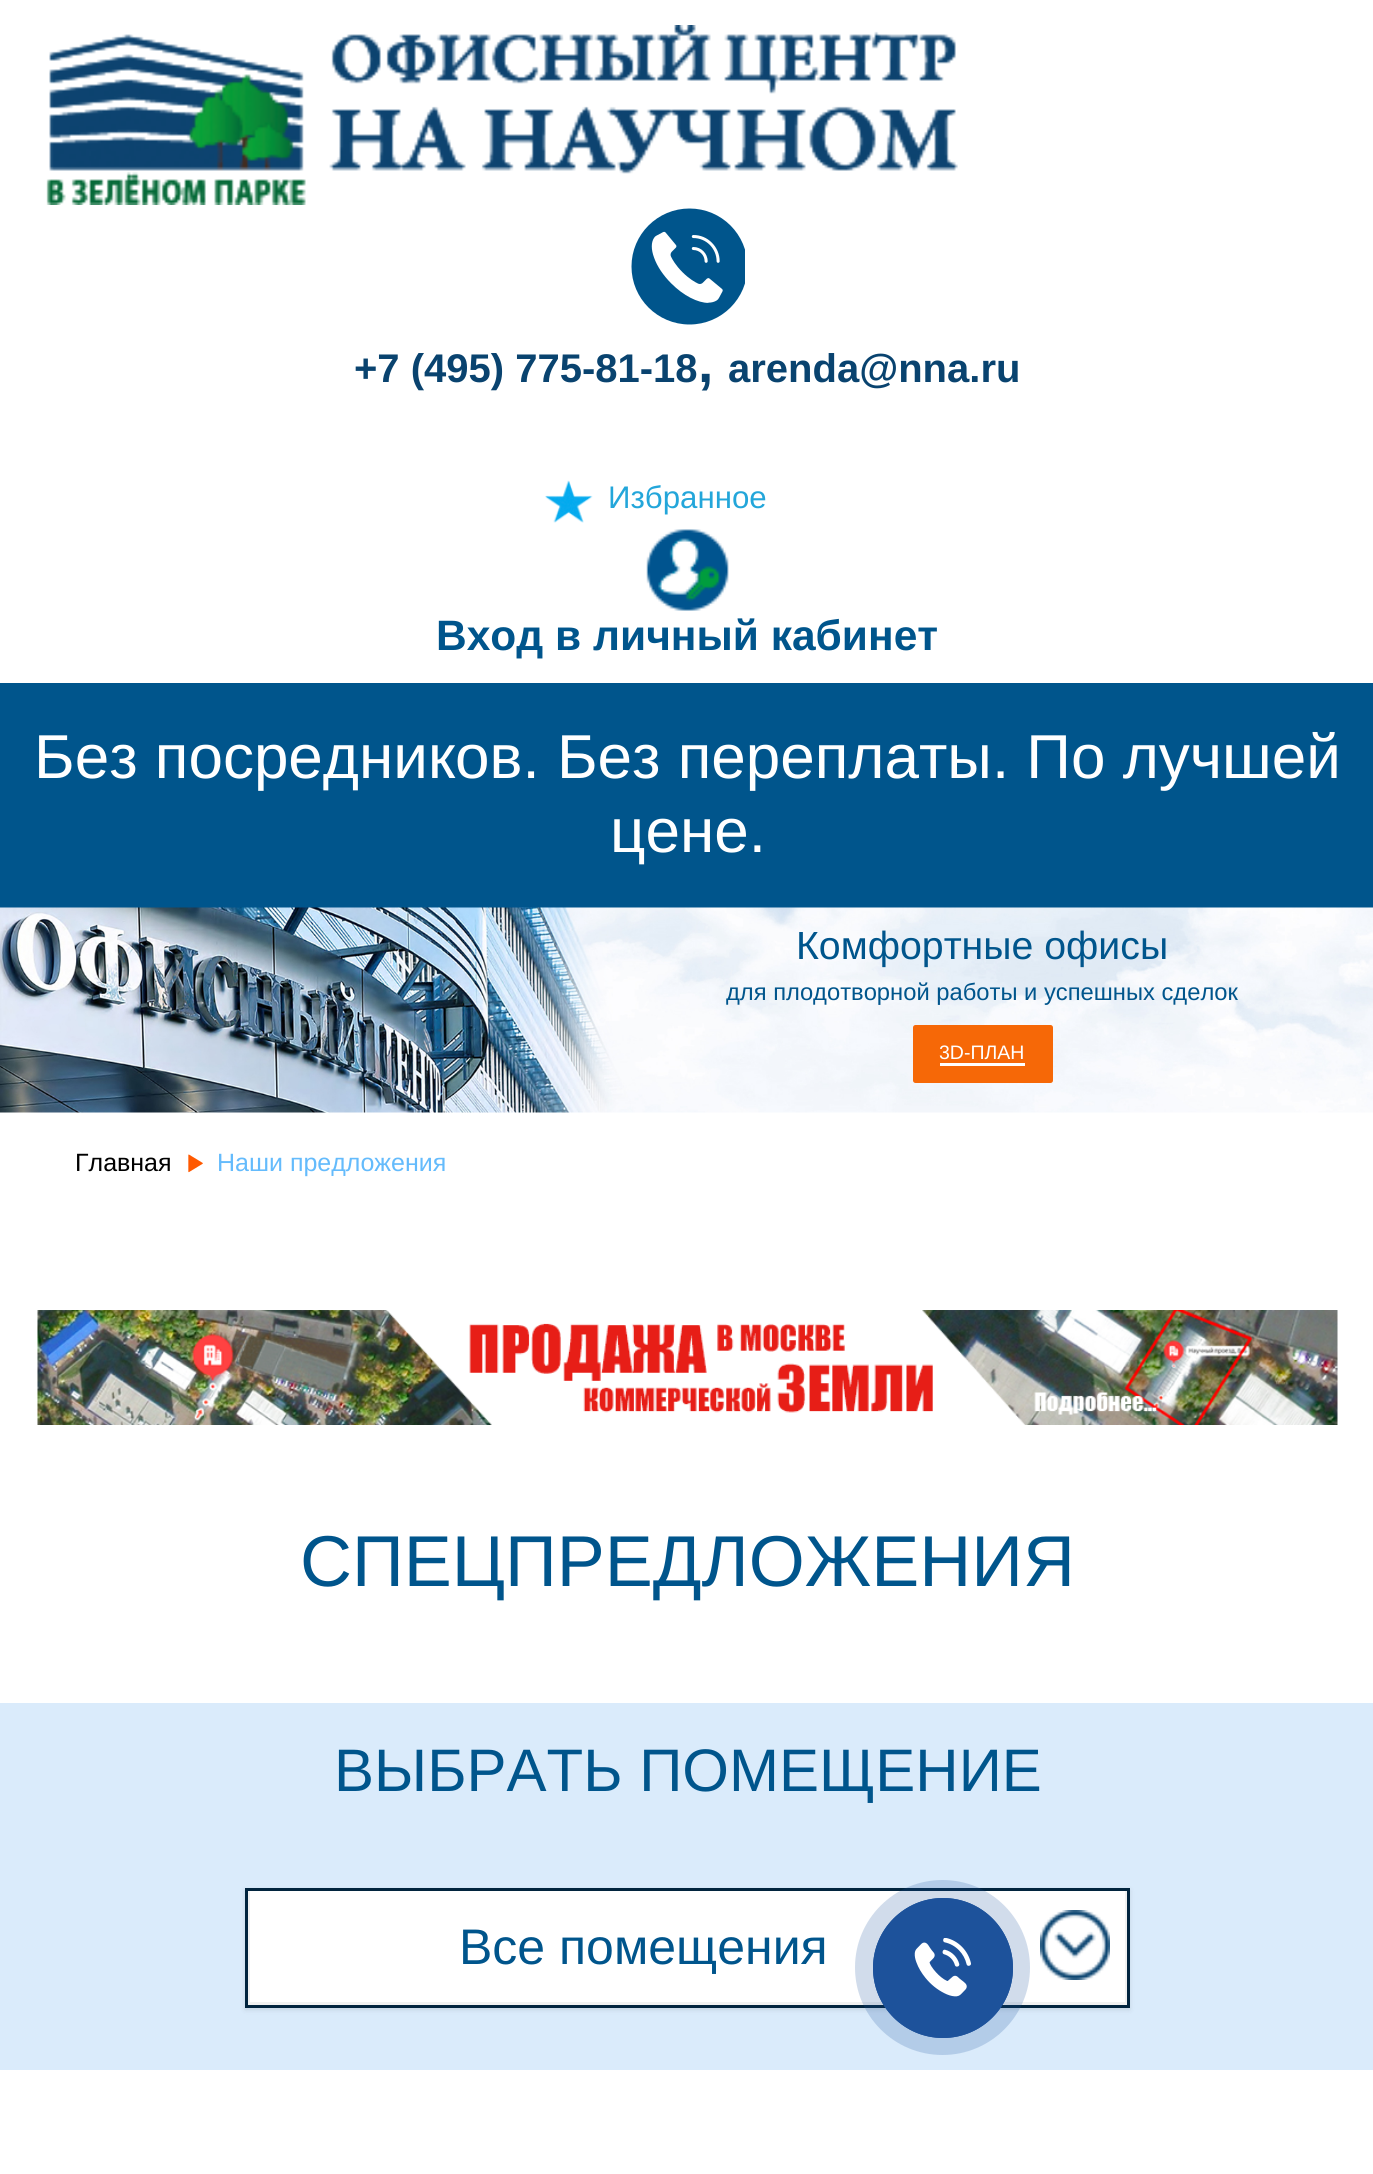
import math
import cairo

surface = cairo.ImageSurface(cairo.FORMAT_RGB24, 1373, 2174)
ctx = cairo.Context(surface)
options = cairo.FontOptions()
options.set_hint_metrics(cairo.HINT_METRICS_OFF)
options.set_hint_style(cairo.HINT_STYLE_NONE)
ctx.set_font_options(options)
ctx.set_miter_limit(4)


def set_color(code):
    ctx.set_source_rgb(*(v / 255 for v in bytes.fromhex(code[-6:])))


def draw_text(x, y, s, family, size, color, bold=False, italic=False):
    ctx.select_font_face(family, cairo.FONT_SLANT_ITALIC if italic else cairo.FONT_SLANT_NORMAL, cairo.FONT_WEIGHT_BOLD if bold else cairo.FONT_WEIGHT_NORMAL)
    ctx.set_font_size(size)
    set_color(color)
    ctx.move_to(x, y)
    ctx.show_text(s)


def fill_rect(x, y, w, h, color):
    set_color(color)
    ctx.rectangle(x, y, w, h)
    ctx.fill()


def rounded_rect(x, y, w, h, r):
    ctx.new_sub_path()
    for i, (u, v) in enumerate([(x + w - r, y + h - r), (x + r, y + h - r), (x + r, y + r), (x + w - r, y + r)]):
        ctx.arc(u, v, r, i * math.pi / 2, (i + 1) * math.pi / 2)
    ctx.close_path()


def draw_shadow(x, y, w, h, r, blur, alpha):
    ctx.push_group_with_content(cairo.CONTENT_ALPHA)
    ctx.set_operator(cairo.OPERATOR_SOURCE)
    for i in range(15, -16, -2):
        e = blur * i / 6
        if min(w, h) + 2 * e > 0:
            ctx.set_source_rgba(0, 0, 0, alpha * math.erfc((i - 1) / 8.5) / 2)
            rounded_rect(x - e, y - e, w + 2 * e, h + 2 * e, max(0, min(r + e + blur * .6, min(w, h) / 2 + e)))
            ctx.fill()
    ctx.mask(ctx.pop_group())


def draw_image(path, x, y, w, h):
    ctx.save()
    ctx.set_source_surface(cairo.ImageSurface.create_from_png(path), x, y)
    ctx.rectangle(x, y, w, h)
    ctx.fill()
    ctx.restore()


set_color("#ffffff")
ctx.paint()
draw_image("assets/img1.png", 46, 25, 912, 180)
draw_image("assets/img2.png", 631, 208, 114, 117)
draw_text(354, 382, "+7 (495) 775-81-18", "Liberation Sans", 40, "#09436f", bold=True)
draw_text(698, 382, ",", "Liberation Sans", 55, "#09436f", bold=True)
draw_text(728, 382, "arenda@nna.ru", "Liberation Sans", 40, "#09436f", bold=True)
draw_image("assets/img3.png", 545, 480, 48, 43)
draw_text(608, 508, "Избранное", "Liberation Sans", 31.25, "#23a6da")
draw_image("assets/img4.png", 646, 529, 83, 82)
draw_text(436, 650, "Вход в личный кабинет", "Liberation Sans", 42.5, "#00558c", bold=True)
fill_rect(0, 683, 1373, 225, "#00558c")
draw_text(34, 778, "Без посредников. Без переплаты. По лучшей", "Liberation Sans", 62, "#ffffff")
draw_text(610, 852, "цене.", "Liberation Sans", 62, "#ffffff")
draw_image("assets/img5.png", 0, 907, 1373, 206)
draw_text(796, 959, "Комфортные офисы", "Liberation Sans", 39.25, "#00558c")
draw_text(726, 1000, "для плодотворной работы и успешных сделок", "Liberation Sans", 23.75, "#00558c")
set_color("#f66807")
rounded_rect(914.5, 1026.5, 137, 55, 1)
ctx.fill_preserve()
ctx.set_line_width(3)
ctx.stroke()
draw_text(939, 1059, "3D-ПЛАН", "Liberation Sans", 19.5, "#ffffff")
fill_rect(940, 1063, 85, 3, "#ffffff")
draw_text(75, 1171, "Главная", "Liberation Sans", 25, "#000000")
draw_image("assets/img6.png", 188, 1154, 15, 19)
draw_text(217, 1171, "Наши предложения", "Liberation Sans", 25, "#64bbfc")
draw_image("assets/img7.png", 37, 1310, 1301, 115)
draw_text(300, 1586, "СПЕЦПРЕДЛОЖЕНИЯ", "Liberation Sans", 72, "#00558c")
fill_rect(0, 1703, 1373, 367, "#daebfb")
draw_text(334, 1791, "ВЫБРАТЬ ПОМЕЩЕНИЕ", "Liberation Sans", 60, "#00558c")
set_color("#000000")
draw_shadow(245, 1890, 885, 120, 0, 2.5, 0.1)
fill_rect(250, 1891, 875, 111, "#ffffff")
fill_rect(1125, 1890, 2, 115, "#f1f1f1")
ctx.save()
ctx.rectangle(248, 1890, 880, 115)
ctx.clip()
ctx.set_fill_rule(cairo.FILL_RULE_EVEN_ODD)
ctx.new_path()
ctx.move_to(0, 1642)
ctx.line_to(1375, 1642)
ctx.line_to(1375, 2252)
ctx.line_to(0, 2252)
ctx.close_path()
ctx.move_to(250, 1888)
ctx.line_to(1130, 1888)
ctx.line_to(1130, 2002)
ctx.line_to(250, 2002)
ctx.close_path()
ctx.fill()
ctx.restore()
ctx.rectangle(246.5, 1889.5, 882, 117)
set_color("#01243e")
ctx.stroke()
draw_text(459, 1964, "Все помещения", "Liberation Sans", 50, "#00558c")
draw_image("assets/img8.png", 1040, 1910, 70, 70)
ctx.set_source_rgba(0.114, 0.322, 0.608, 0.2)
ctx.arc(942.5, 1967.5, 87.5, 0, 2 * math.pi)
ctx.fill()
ctx.arc(943, 1968, 69, 0, 2 * math.pi)
set_color("#1d529b")
ctx.set_line_width(2)
ctx.stroke()
ctx.arc(943, 1968, 70, 0, 2 * math.pi)
ctx.fill()
draw_image("assets/img9.png", 914, 1938, 57, 59)
surface.write_to_png("output.png")
